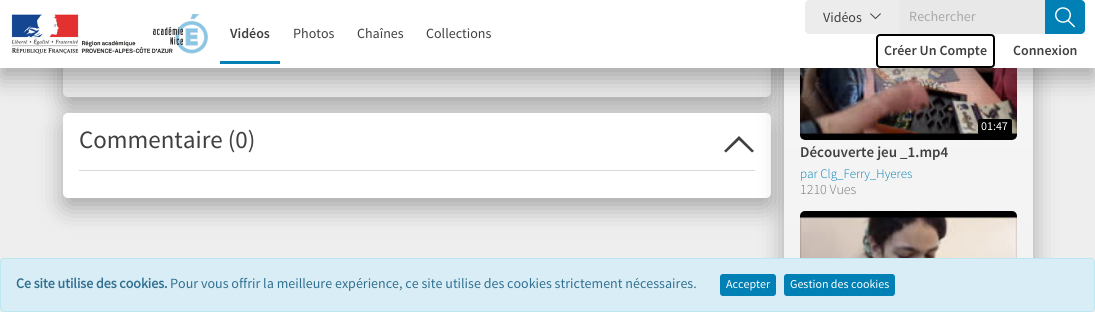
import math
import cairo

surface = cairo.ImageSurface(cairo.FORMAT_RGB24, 1095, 312)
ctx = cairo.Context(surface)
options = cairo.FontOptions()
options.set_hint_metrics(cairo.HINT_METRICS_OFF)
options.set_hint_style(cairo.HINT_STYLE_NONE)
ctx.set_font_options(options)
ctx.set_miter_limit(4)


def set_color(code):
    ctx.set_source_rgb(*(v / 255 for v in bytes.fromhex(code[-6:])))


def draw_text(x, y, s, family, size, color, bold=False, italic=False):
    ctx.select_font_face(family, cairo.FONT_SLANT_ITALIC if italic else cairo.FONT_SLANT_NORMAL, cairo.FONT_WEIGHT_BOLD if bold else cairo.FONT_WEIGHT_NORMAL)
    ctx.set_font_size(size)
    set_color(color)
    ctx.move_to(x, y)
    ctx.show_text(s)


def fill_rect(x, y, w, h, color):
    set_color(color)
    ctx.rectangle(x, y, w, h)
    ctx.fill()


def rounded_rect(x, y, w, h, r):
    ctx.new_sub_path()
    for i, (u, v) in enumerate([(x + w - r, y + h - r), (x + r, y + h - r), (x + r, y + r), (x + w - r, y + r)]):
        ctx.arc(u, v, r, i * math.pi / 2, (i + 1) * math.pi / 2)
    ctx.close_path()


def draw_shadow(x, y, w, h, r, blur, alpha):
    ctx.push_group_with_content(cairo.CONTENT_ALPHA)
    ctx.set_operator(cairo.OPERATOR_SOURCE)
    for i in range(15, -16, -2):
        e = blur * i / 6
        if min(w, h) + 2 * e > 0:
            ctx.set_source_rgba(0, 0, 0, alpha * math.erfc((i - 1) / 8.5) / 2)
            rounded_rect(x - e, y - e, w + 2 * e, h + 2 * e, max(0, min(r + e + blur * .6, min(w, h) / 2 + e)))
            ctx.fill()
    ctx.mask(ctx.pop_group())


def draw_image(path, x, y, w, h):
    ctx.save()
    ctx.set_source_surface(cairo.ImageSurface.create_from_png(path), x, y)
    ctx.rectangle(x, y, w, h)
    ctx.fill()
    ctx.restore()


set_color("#eeeeee")
ctx.paint()
set_color("#000000")
draw_shadow(63, -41, 708, 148, 5, 12, 0.3)
gradient = cairo.LinearGradient(417, -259, 417, 97)
gradient.add_color_stop_rgba(0, 1, 1, 1, 1)
gradient.add_color_stop_rgba(1, 0.91, 0.91, 0.91, 1)
ctx.set_source(gradient)
rounded_rect(63, -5, 708, 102, 5)
ctx.fill()
set_color("#000000")
draw_shadow(63, 123, 708, 85, 5, 12, 0.3)
set_color("#ffffff")
rounded_rect(63, 113, 708, 85, 5)
ctx.fill()
set_color("#000000")
draw_shadow(784, -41, 249, 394, 5, 12, 0.3)
gradient = cairo.LinearGradient(908, -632, 909, 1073)
gradient.add_color_stop_rgba(0, 1, 1, 1, 1)
gradient.add_color_stop_rgba(1, 0.91, 0.91, 0.91, 1)
ctx.set_source(gradient)
ctx.rectangle(784, 68, 249, 190)
ctx.fill()
draw_image("assets/img4.png", 800, 68, 217, 72)
set_color("#000000")
draw_shadow(0, 10, 1095, 68, 0, 12, 0.3)
fill_rect(0, 0, 1095, 68, "#ffffff")
draw_image("assets/img1.png", 11, 14, 197, 40)
draw_text(230, 38, "Vidéos", "Source Sans Pro SemiBold", 14, "#404040")
fill_rect(220, 61, 60, 3, "#0080b4")
draw_text(293, 38, "Photos", "Source Sans Pro", 14, "#404040")
draw_text(357, 38, "Chaînes", "Source Sans Pro", 14, "#404040")
draw_text(426, 38, "Collections", "Source Sans Pro", 14, "#404040")
set_color("#ececec")
ctx.new_path()
ctx.move_to(809, 0)
ctx.line_to(899, 0)
ctx.line_to(899, 34)
ctx.line_to(809, 34)
ctx.curve_to(807, 34, 805, 32, 805, 30)
ctx.line_to(805, 4)
ctx.curve_to(805, 2, 807, 0, 809, 0)
ctx.close_path()
ctx.fill()
draw_text(823, 22, "Vidéos", "Source Sans Pro", 14, "#404040")
draw_image("assets/img2.png", 870, 13, 11, 7)
fill_rect(899, 0, 146, 34, "#e8e8e8")
draw_text(909, 21, "Rechercher", "Source Sans Pro", 14, "#a8a8a8")
set_color("#0080b4")
ctx.new_path()
ctx.move_to(1045, 0)
ctx.line_to(1081, 0)
ctx.curve_to(1083, 0, 1085, 2, 1085, 4)
ctx.line_to(1085, 30)
ctx.curve_to(1085, 32, 1083, 34, 1081, 34)
ctx.line_to(1045, 34)
ctx.close_path()
ctx.fill()
draw_image("assets/img3.png", 1055, 7, 20, 21)
rounded_rect(877, 35, 117, 32, 3)
set_color("#000000")
ctx.stroke()
draw_text(884, 55, "Créer Un Compte", "Source Sans Pro SemiBold", 14, "#404040")
draw_text(1013, 55, "Connexion", "Source Sans Pro SemiBold", 14, "#404040")
fill_rect(79, 170, 676, 1, "#d9d9d9")
draw_text(79, 148, "Commentaire (0)", "Source Sans Pro", 25, "#404040")
ctx.new_path()
ctx.move_to(726, 152.5)
ctx.line_to(739, 140)
ctx.line_to(752, 152.5)
ctx.line_to(754, 151)
ctx.line_to(739, 136)
ctx.line_to(724, 151)
ctx.close_path()
ctx.fill()
set_color("#000000")
rounded_rect(978, 119, 34, 16, 2)
ctx.fill()
draw_text(981, 130, "01:47", "Source Sans Pro", 12, "#ffffff")
draw_text(800, 157, "Découverte jeu _1.mp4", "Source Sans Pro SemiBold", 15, "#404040")
draw_text(800, 178, "par Clg_Ferry_Hyeres", "Source Sans Pro Light", 13, "#0080b4")
draw_text(800, 194, "1210 Vues", "Source Sans Pro Light", 14, "#757575")
draw_image("assets/img5.png", 800, 211, 217, 47)
set_color("#d9edf7")
rounded_rect(0.5, 258.5, 1094, 53, 3.5)
ctx.fill_preserve()
set_color("#bce8f1")
ctx.set_line_width(1)
ctx.stroke()
draw_text(16, 288, "Ce site utilise des cookies.", "Source Sans Pro", 14, "#31708f", bold=True)
draw_text(170, 288, "Pour vous offrir la meilleure expérience, ce site utilise des cookies strictement nécessaires.", "Source Sans Pro", 14, "#31708f")
set_color("#0080b4")
rounded_rect(720.5, 274.5, 55, 21, 2.5)
ctx.fill_preserve()
ctx.stroke()
draw_text(726, 288, "Accepter", "Source Sans Pro", 12, "#ffffff")
set_color("#0080b4")
rounded_rect(784.5, 274.5, 110, 21, 2.5)
ctx.fill_preserve()
ctx.stroke()
draw_text(790, 288, "Gestion des cookies", "Source Sans Pro", 12, "#ffffff")
surface.write_to_png("output.png")
